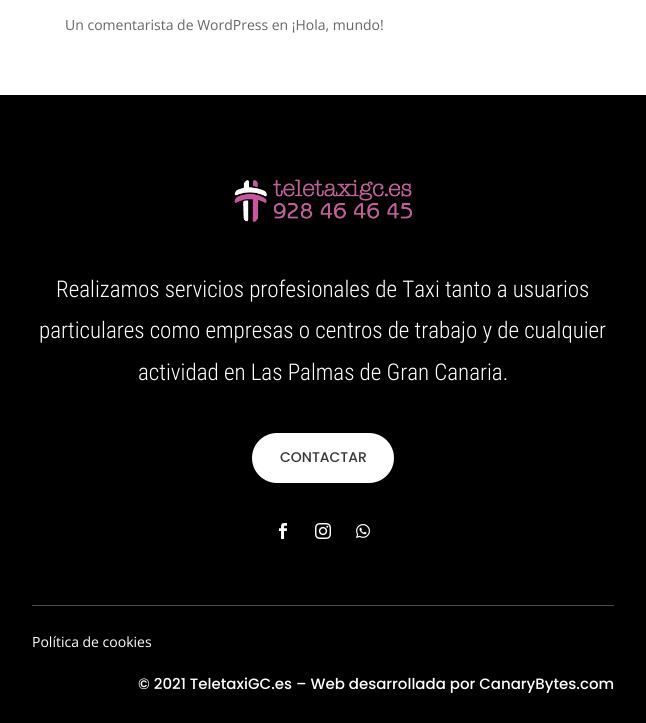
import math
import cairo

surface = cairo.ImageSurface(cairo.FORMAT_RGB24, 646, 723)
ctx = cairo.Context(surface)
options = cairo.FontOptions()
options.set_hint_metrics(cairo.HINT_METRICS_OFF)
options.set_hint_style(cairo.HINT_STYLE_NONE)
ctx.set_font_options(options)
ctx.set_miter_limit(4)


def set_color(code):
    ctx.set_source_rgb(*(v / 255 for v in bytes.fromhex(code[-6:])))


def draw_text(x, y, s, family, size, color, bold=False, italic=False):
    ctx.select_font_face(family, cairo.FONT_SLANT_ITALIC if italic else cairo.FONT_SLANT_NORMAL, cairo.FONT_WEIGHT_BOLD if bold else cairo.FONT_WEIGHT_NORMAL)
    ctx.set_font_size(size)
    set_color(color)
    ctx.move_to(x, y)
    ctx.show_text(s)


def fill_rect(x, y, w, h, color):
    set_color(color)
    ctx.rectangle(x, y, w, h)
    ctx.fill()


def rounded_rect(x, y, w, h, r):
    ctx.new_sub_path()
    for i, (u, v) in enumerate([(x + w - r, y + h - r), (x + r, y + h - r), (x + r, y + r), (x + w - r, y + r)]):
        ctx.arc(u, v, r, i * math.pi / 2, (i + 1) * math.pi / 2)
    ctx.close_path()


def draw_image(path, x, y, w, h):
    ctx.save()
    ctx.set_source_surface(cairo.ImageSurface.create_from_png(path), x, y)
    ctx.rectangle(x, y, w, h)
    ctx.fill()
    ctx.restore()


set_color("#ffffff")
ctx.paint()
draw_text(65, 30, "Un comentarista de WordPress en ¡Hola, mundo!", "Open Sans", 14, "#666666")
fill_rect(0, 95, 646, 628, "#000000")
draw_image("assets/img1.png", 234, 179, 178, 43)
draw_text(56, 297, "Realizamos servicios profesionales de Taxi tanto a usuarios", "Roboto Condensed Light", 23, "#ffffff")
draw_text(39, 338, "particulares como empresas o centros de trabajo y de cualquier", "Roboto Condensed Light", 23, "#ffffff")
draw_text(138, 380, "actividad en Las Palmas de Gran Canaria.", "Roboto Condensed Light", 23, "#ffffff")
rounded_rect(252, 433, 142, 50, 25)
ctx.fill()
draw_text(280, 462, "CONTACTAR", "Poppins Medium", 14, "#383838")
draw_image("assets/img2.png", 279, 523, 8, 16)
draw_image("assets/img3.png", 315, 523, 16, 16)
draw_image("assets/img4.png", 356, 524, 14, 14)
fill_rect(32, 605, 582, 1, "#4d4d4d")
draw_text(32, 647, "Política de cookies", "Open Sans", 14, "#ffffff")
draw_text(138, 689, "© 2021 TeletaxiGC.es – Web desarrollada por CanaryBytes.com", "Poppins Medium", 15, "#ffffff")
surface.write_to_png("output.png")
